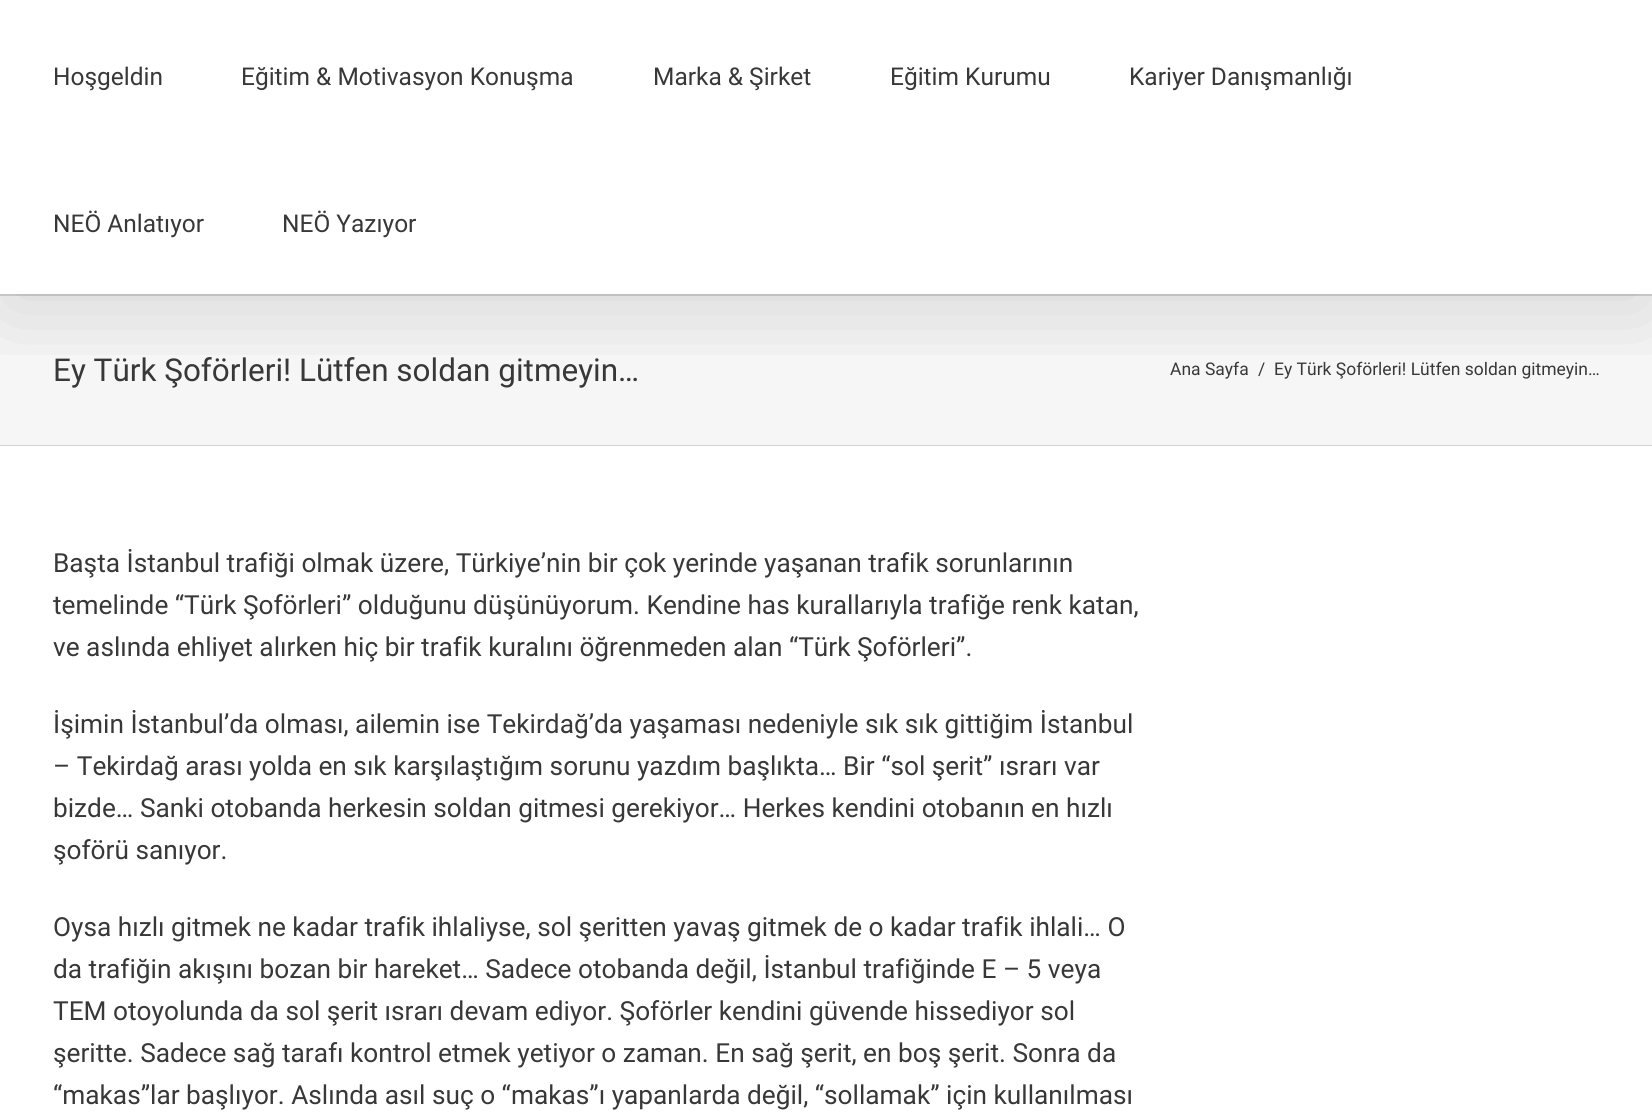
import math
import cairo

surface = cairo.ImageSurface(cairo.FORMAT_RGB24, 1652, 1116)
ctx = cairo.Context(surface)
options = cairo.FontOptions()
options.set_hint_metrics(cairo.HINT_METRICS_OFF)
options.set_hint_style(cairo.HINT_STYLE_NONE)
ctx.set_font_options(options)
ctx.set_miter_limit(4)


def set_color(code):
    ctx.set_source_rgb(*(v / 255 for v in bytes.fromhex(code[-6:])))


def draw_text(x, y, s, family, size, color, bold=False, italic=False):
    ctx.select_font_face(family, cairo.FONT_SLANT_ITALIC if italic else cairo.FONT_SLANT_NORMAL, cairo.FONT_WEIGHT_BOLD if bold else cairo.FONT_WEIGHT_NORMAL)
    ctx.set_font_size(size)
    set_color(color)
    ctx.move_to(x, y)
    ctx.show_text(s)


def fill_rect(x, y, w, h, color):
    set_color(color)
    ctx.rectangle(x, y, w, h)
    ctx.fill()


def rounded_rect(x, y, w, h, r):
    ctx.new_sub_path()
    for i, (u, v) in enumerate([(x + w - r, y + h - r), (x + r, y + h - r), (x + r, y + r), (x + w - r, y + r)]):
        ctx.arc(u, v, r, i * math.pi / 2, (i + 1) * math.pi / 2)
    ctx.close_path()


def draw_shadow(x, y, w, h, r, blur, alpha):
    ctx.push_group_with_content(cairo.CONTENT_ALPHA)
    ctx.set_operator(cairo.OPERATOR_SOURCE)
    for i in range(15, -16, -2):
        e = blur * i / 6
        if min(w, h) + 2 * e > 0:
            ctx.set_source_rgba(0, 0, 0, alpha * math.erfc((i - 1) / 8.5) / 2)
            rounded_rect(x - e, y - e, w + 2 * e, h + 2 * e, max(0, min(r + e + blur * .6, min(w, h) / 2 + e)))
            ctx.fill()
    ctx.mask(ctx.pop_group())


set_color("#ffffff")
ctx.paint()
fill_rect(0, 296, 1652, 149, "#f6f6f6")
fill_rect(0, 294, 1652, 2, "#d2d3d4")
ctx.save()
ctx.rectangle(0, 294, 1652, 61)
ctx.clip()
set_color("#000000")
draw_shadow(4, 21, 1645, 287, 0, 44, 0.14)
ctx.restore()
draw_text(53, 85, "Hoşgeldin", "Roboto", 24.5, "#383838")
draw_text(241, 85, "Eğitim & Motivasyon Konuşma", "Roboto", 24.5, "#383838")
draw_text(653, 85, "Marka & Şirket", "Roboto", 24.5, "#383838")
draw_text(890, 85, "Eğitim Kurumu", "Roboto", 24.5, "#383838")
draw_text(1129, 85, "Kariyer Danışmanlığı", "Roboto", 24.5, "#383838")
draw_text(53, 232, "NEÖ Anlatıyor", "Roboto", 24.5, "#383838")
draw_text(282, 232, "NEÖ Yazıyor", "Roboto", 24.5, "#383838")
fill_rect(0, 445, 1652, 1, "#d2d3d4")
draw_text(53, 381, "Ey Türk Şoförleri! Lütfen soldan gitmeyin…", "Roboto", 31.5, "#383838")
draw_text(1170, 375, "Ana Sayfa", "Roboto", 17.5, "#383838")
draw_text(1258, 375, "/", "Roboto", 17.5, "#383838")
draw_text(1274, 375, "Ey Türk Şoförleri! Lütfen soldan gitmeyin…", "Roboto", 17.5, "#383838")
draw_text(53, 572, "Başta İstanbul trafiği olmak üzere, Türkiye’nin bir çok yerinde yaşanan trafik sorunlarının", "Roboto", 26.25, "#383838")
draw_text(53, 614, "temelinde “Türk Şoförleri” olduğunu düşünüyorum. Kendine has kurallarıyla trafiğe renk katan,", "Roboto", 26.25, "#383838")
draw_text(53, 656, "ve aslında ehliyet alırken hiç bir trafik kuralını öğrenmeden alan “Türk Şoförleri”.", "Roboto", 26.25, "#383838")
draw_text(53, 733, "İşimin İstanbul’da olması, ailemin ise Tekirdağ’da yaşaması nedeniyle sık sık gittiğim İstanbul", "Roboto", 26.25, "#383838")
draw_text(53, 775, "– Tekirdağ arası yolda en sık karşılaştığım sorunu yazdım başlıkta… Bir “sol şerit” ısrarı var", "Roboto", 26.25, "#383838")
draw_text(53, 817, "bizde… Sanki otobanda herkesin soldan gitmesi gerekiyor… Herkes kendini otobanın en hızlı", "Roboto", 26.25, "#383838")
draw_text(53, 859, "şoförü sanıyor.", "Roboto", 26.25, "#383838")
draw_text(53, 936, "Oysa hızlı gitmek ne kadar trafik ihlaliyse, sol şeritten yavaş gitmek de o kadar trafik ihlali… O", "Roboto", 26.25, "#383838")
draw_text(53, 978, "da trafiğin akışını bozan bir hareket… Sadece otobanda değil, İstanbul trafiğinde E – 5 veya", "Roboto", 26.25, "#383838")
draw_text(53, 1020, "TEM otoyolunda da sol şerit ısrarı devam ediyor. Şoförler kendini güvende hissediyor sol", "Roboto", 26.25, "#383838")
draw_text(53, 1062, "şeritte. Sadece sağ tarafı kontrol etmek yetiyor o zaman. En sağ şerit, en boş şerit. Sonra da", "Roboto", 26.25, "#383838")
draw_text(53, 1104, "“makas”lar başlıyor. Aslında asıl suç o “makas”ı yapanlarda değil, “sollamak” için kullanılması", "Roboto", 26.25, "#383838")
surface.write_to_png("output.png")
